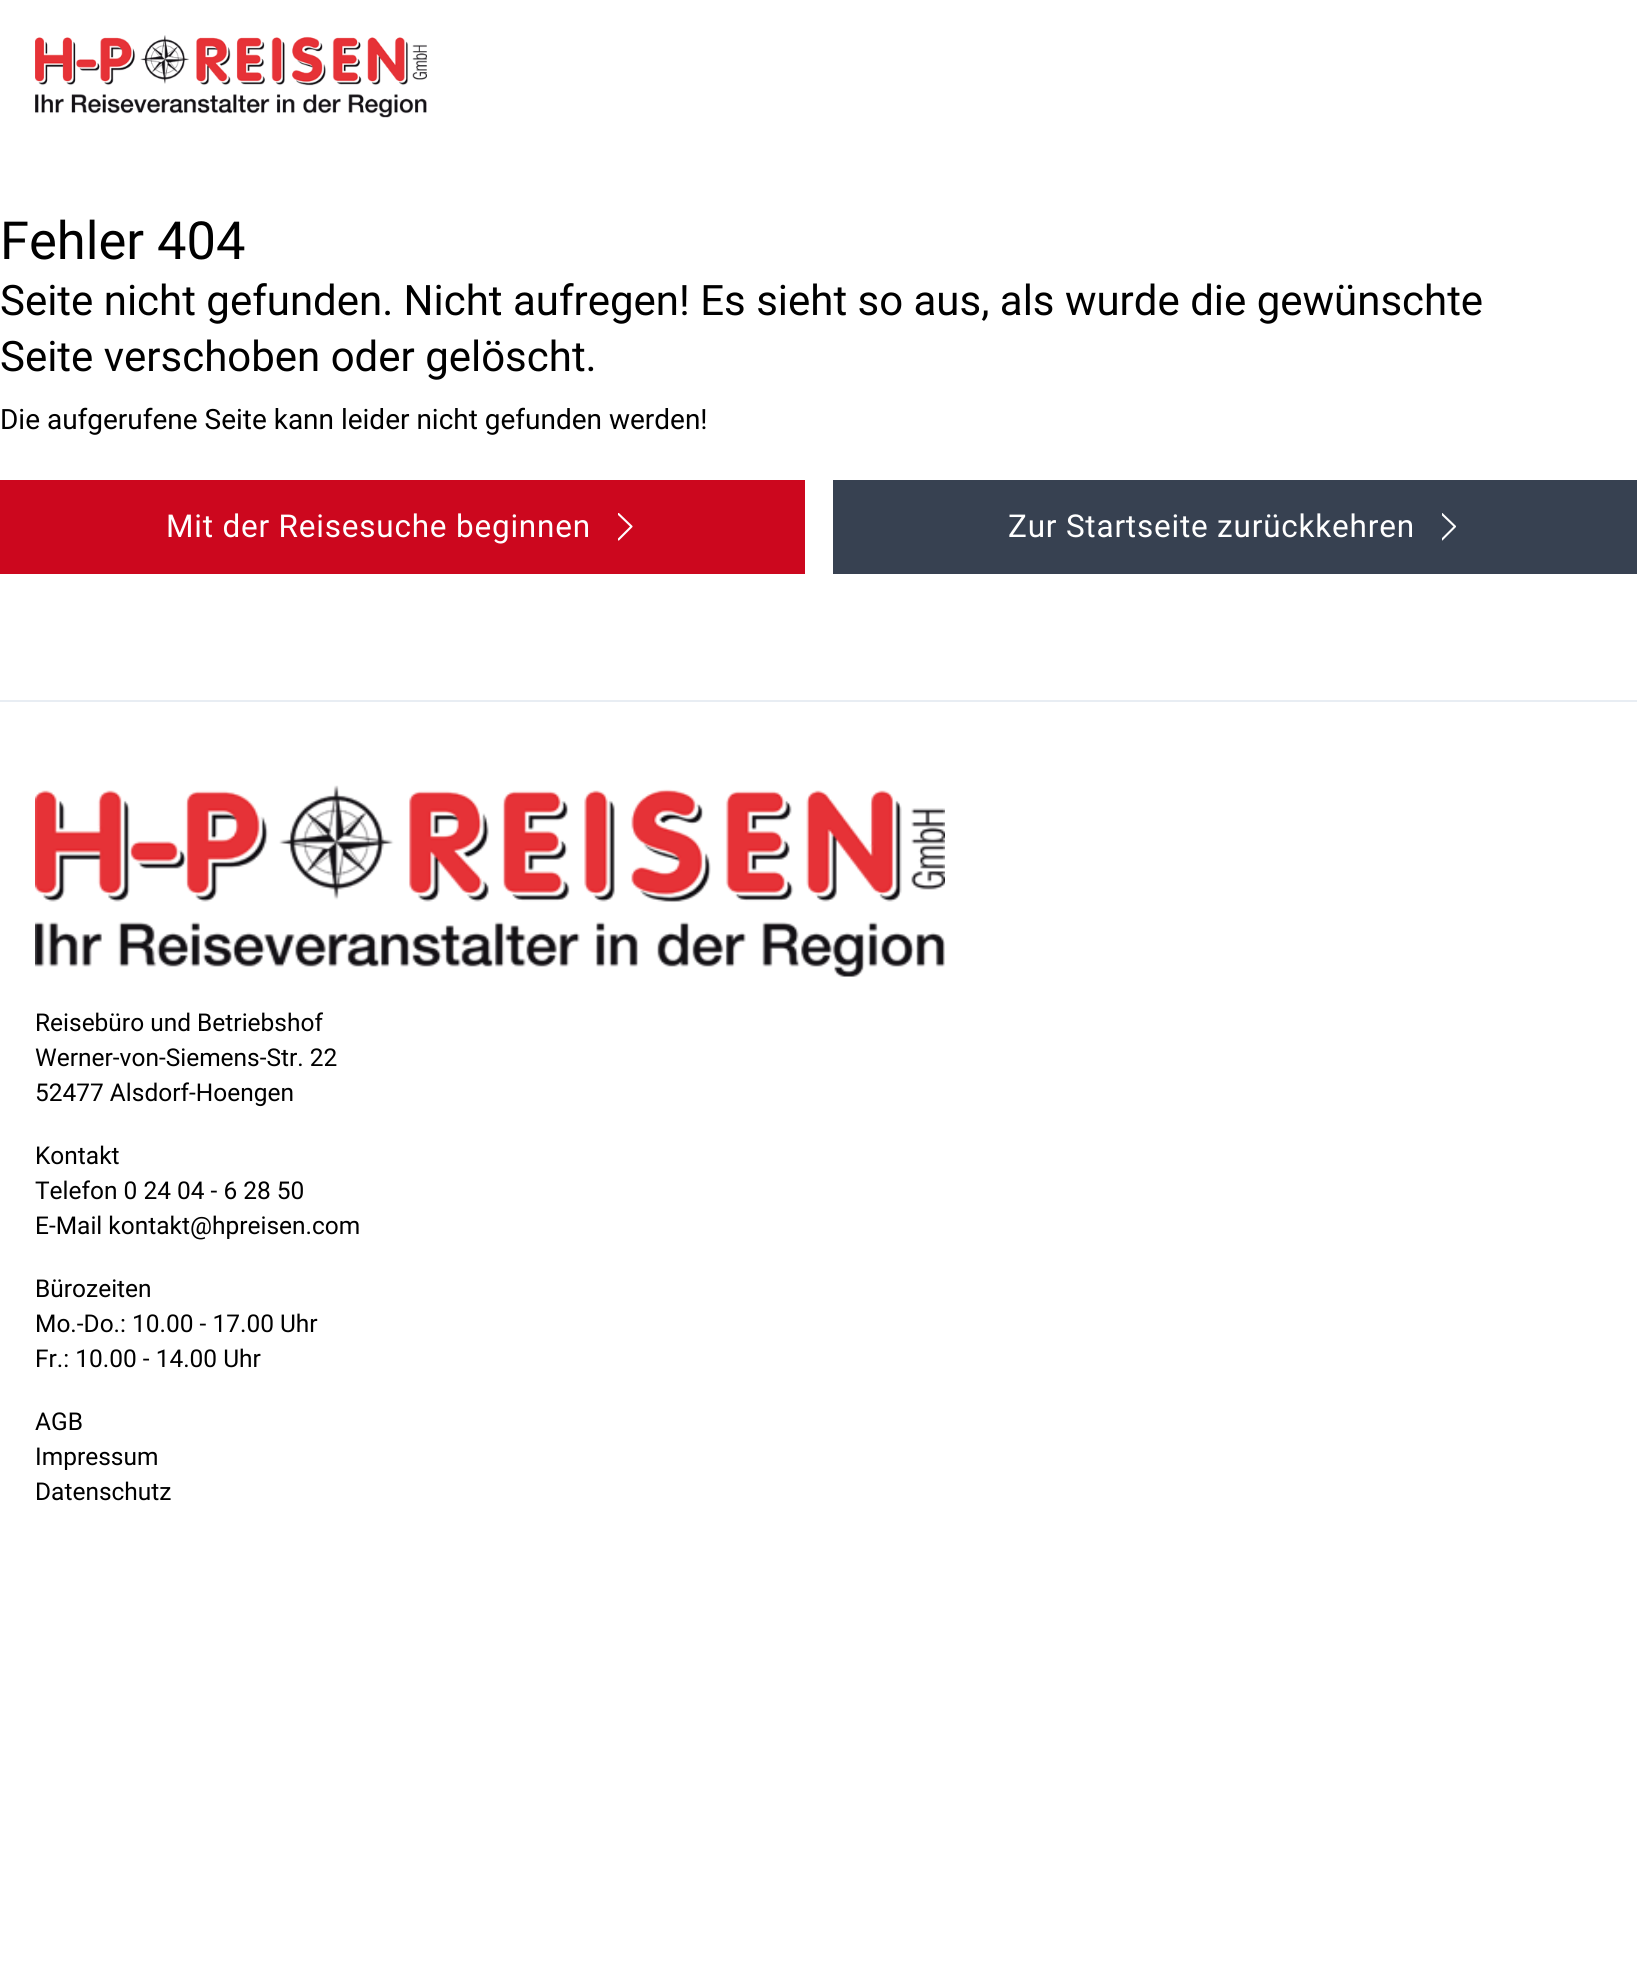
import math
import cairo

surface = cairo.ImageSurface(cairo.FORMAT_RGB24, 1637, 1983)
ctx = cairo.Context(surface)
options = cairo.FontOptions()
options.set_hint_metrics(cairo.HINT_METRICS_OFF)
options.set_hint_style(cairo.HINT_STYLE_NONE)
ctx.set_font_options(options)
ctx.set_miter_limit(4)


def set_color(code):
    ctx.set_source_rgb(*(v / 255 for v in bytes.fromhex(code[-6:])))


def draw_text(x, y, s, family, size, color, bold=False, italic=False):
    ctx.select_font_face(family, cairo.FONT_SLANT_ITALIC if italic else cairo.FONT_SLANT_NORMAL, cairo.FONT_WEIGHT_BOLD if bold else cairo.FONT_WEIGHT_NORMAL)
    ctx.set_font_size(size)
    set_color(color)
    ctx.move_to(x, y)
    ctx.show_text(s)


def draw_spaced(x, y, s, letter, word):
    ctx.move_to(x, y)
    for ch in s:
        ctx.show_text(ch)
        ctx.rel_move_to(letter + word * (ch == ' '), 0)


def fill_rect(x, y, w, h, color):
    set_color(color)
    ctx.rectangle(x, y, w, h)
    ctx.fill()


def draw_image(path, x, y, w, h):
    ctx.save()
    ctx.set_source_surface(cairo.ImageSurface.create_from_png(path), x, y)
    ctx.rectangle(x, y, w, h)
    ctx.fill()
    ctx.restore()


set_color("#ffffff")
ctx.paint()
draw_image("assets/img1.png", 35, 35, 392, 83)
draw_text(0, 259, "Fehler 404", "Roboto", 52.5, "#000000")
draw_text(0, 315, "Seite nicht gefunden. Nicht aufregen! Es sieht so aus, als wurde die gewünschte", "Roboto", 42, "#000000")
draw_text(0, 371, "Seite verschoben oder gelöscht.", "Roboto", 42, "#000000")
draw_text(0, 429, "Die aufgerufene Seite kann leider nicht gefunden werden!", "Roboto", 28, "#000000")
fill_rect(0, 480, 805, 94, "#cc071e")
ctx.set_font_size(31.5)
set_color("#ffffff")
draw_spaced(166, 537, "Mit der Reisesuche beginnen", 0.8, 0)
ctx.save()
ctx.rectangle(618, 513, 16, 28)
ctx.clip()
ctx.new_path()
ctx.move_to(631.5, 526.5)
ctx.line_to(618.5, 539.5)
ctx.line_to(631.5, 526.5)
ctx.line_to(618.5, 514)
ctx.close_path()
ctx.set_line_width(2.1)
ctx.set_line_cap(cairo.LINE_CAP_SQUARE)
ctx.set_line_join(cairo.LINE_JOIN_ROUND)
ctx.stroke()
ctx.restore()
fill_rect(833, 480, 804, 94, "#374151")
set_color("#ffffff")
draw_spaced(1008, 537, "Zur Startseite zurückkehren", 0.8, 0)
ctx.save()
ctx.rectangle(1442, 513, 14, 28)
ctx.clip()
ctx.new_path()
ctx.move_to(1455, 526.5)
ctx.line_to(1442, 539.5)
ctx.line_to(1455, 526.5)
ctx.line_to(1442, 514)
ctx.close_path()
ctx.set_line_width(2.1)
ctx.set_line_cap(cairo.LINE_CAP_SQUARE)
ctx.set_line_join(cairo.LINE_JOIN_ROUND)
ctx.stroke()
ctx.restore()
fill_rect(0, 700, 1637, 2, "#e8edf3")
draw_image("assets/img2.png", 35, 785, 910, 192)
draw_text(35, 1031, "Reisebüro und Betriebshof", "Roboto", 24.5, "#000000")
draw_text(35, 1066, "Werner-von-Siemens-Str. 22", "Roboto", 24.5, "#000000")
draw_text(35, 1101, "52477 Alsdorf-Hoengen", "Roboto", 24.5, "#000000")
draw_text(35, 1164, "Kontakt", "Roboto", 24.5, "#000000")
draw_text(35, 1199, "Telefon 0 24 04 - 6 28 50", "Roboto", 24.5, "#000000")
draw_text(35, 1234, "E-Mail kontakt@hpreisen.com", "Roboto", 24.5, "#000000")
draw_text(35, 1297, "Bürozeiten", "Roboto", 24.5, "#000000")
draw_text(35, 1332, "Mo.-Do.: 10.00 - 17.00 Uhr", "Roboto", 24.5, "#000000")
draw_text(35, 1367, "Fr.: 10.00 - 14.00 Uhr", "Roboto", 24.5, "#000000")
draw_text(35, 1430, "AGB", "Roboto", 24.5, "#000000")
draw_text(35, 1465, "Impressum", "Roboto", 24.5, "#000000")
draw_text(35, 1500, "Datenschutz", "Roboto", 24.5, "#000000")
surface.write_to_png("output.png")
